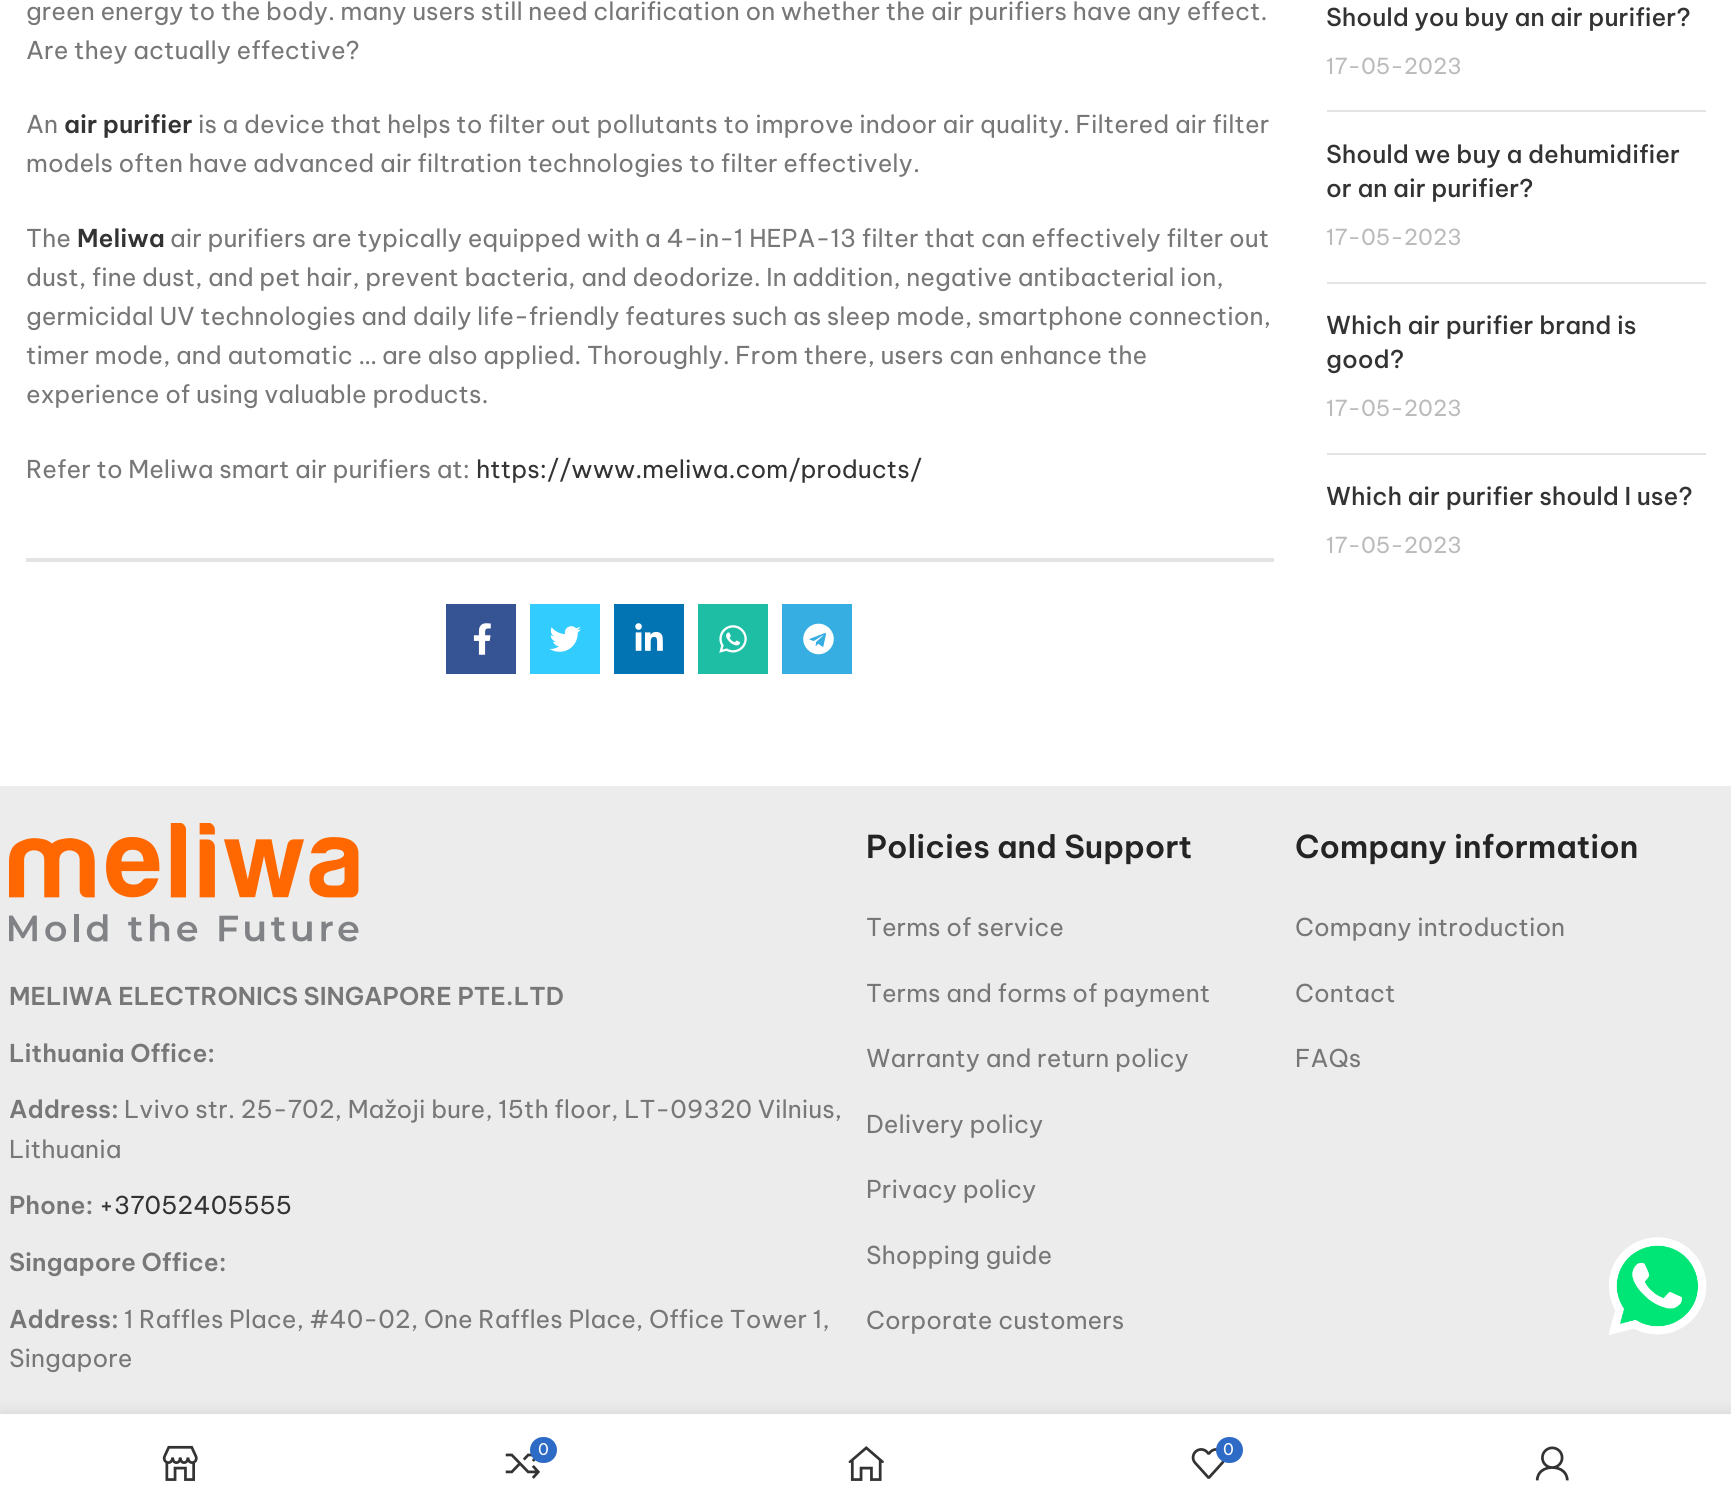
import math
import cairo



def rounded_rect(context, x, y, w, h, r):
    context.new_sub_path()
    for i, (u, v) in enumerate([(x + w - r, y + h - r), (x + r, y + h - r), (x + r, y + r), (x + w - r, y + r)]):
        context.arc(u, v, r, i * math.pi / 2, (i + 1) * math.pi / 2)
    context.close_path()


def draw_shadow(context, x, y, w, h, r, blur, alpha):
    context.push_group_with_content(cairo.Content.ALPHA)
    context.set_operator(cairo.Operator.SOURCE)
    for i in range(15, -16, -2):
        e = blur * i / 6
        if min(w, h) + 2 * e > 0:
            context.set_source_rgba(0, 0, 0, alpha * math.erfc((i - 1) / 8.5) / 2)
            rounded_rect(context, x - e, y - e, w + 2 * e, h + 2 * e, max(0, min(r + e + blur * .6, min(w, h) / 2 + e)))
            context.fill()
    context.mask(context.pop_group())


def draw_image(context, path, x, y, w, h):
    context.save()
    context.set_source_surface(cairo.ImageSurface.create_from_png(path), x, y)
    context.rectangle(x, y, w, h)
    context.fill()
    context.restore()


def draw(context):
    context.set_source_rgb(1, 1, 1)
    context.paint()
    context.set_source_rgb(228 / 255, 228 / 255, 228 / 255)
    context.rectangle(26, 558, 1248, 4)
    context.fill()
    context.set_source_rgb(54 / 255, 84 / 255, 147 / 255)
    context.rectangle(446, 604, 70, 70)
    context.fill()
    draw_image(context, "images/1.png", 473, 623, 18, 32)
    context.set_source_rgb(51 / 255, 204 / 255, 1)
    context.rectangle(530, 604, 70, 70)
    context.fill()
    draw_image(context, "images/2.png", 549, 626, 32, 26)
    context.set_source_rgb(2 / 255, 116 / 255, 179 / 255)
    context.rectangle(614, 604, 70, 70)
    context.fill()
    draw_image(context, "images/3.png", 635, 623, 28, 28)
    context.set_source_rgb(30 / 255, 190 / 255, 165 / 255)
    context.rectangle(698, 604, 70, 70)
    context.fill()
    draw_image(context, "images/4.png", 719, 625, 28, 28)
    context.set_source_rgb(55 / 255, 174 / 255, 226 / 255)
    context.rectangle(782, 604, 70, 70)
    context.fill()
    draw_image(context, "images/5.png", 803, 623, 31, 32)
    context.set_source_rgb(228 / 255, 228 / 255, 228 / 255)
    context.rectangle(1327, 110, 379, 2)
    context.fill()
    context.rectangle(1327, 282, 379, 2)
    context.fill()
    context.rectangle(1327, 453, 379, 2)
    context.fill()
    context.set_source_rgb(236 / 255, 236 / 255, 236 / 255)
    context.rectangle(0, 786, 1731, 628)
    context.fill()
    draw_image(context, "images/6.png", 9, 823, 350, 119)
    draw_image(context, "images/7.png", 1608, 1237, 99, 98)
    context.set_source_rgb(0, 0, 0)
    draw_shadow(context, 0, 1414, 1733, 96, 0, 8, 0.12)
    context.set_source_rgb(1, 1, 1)
    context.rectangle(0, 1414, 1731, 95)
    context.fill()
    draw_image(context, "images/8.png", 162, 1445, 36, 36)
    draw_image(context, "images/9.png", 505, 1453, 35, 26)
    context.set_source_rgb(46 / 255, 107 / 255, 198 / 255)
    rounded_rect(context, 530, 1437, 27, 26, 13)
    context.fill()
    draw_image(context, "images/10.png", 848, 1446, 36, 35)
    draw_image(context, "images/11.png", 1191, 1448, 34, 31)
    rounded_rect(context, 1216, 1437, 27, 26, 13)
    context.fill()
    draw_image(context, "images/12.png", 1535, 1446, 34, 35)
    context.select_font_face("Be Vietnam Pro")
    context.set_font_size(24.5)
    context.set_source_rgb(119 / 255, 119 / 255, 119 / 255)
    context.move_to(26, 20)
    context.show_text("green energy to the body. many users still need clarification on whether the air purifiers have any effect.")
    context.move_to(26, 59)
    context.show_text("Are they actually effective?")
    context.move_to(26, 133)
    context.show_text("An")
    context.select_font_face("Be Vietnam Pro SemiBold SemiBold")
    context.set_source_rgb(51 / 255, 51 / 255, 51 / 255)
    context.move_to(64, 133)
    context.show_text("air purifier")
    context.select_font_face("Be Vietnam Pro")
    context.set_source_rgb(119 / 255, 119 / 255, 119 / 255)
    context.move_to(198, 133)
    context.show_text("is a device that helps to filter out pollutants to improve indoor air quality. Filtered air filter")
    context.move_to(26, 172)
    context.show_text("models often have advanced air filtration technologies to filter effectively.")
    context.move_to(26, 247)
    context.show_text("The")
    context.select_font_face("Be Vietnam Pro SemiBold SemiBold")
    context.set_source_rgb(51 / 255, 51 / 255, 51 / 255)
    context.move_to(77, 247)
    context.show_text("Meliwa")
    context.select_font_face("Be Vietnam Pro")
    context.set_source_rgb(119 / 255, 119 / 255, 119 / 255)
    context.move_to(170, 247)
    context.show_text("air purifiers are typically equipped with a 4-in-1 HEPA-13 filter that can effectively filter out")
    context.move_to(26, 286)
    context.show_text("dust, fine dust, and pet hair, prevent bacteria, and deodorize. In addition, negative antibacterial ion,")
    context.move_to(26, 325)
    context.show_text("germicidal UV technologies and daily life-friendly features such as sleep mode, smartphone connection,")
    context.move_to(26, 364)
    context.show_text("timer mode, and automatic … are also applied. Thoroughly. From there, users can enhance the")
    context.move_to(26, 403)
    context.show_text("experience of using valuable products.")
    context.move_to(26, 478)
    context.show_text("Refer to Meliwa smart air purifiers at:")
    context.set_source_rgb(51 / 255, 51 / 255, 51 / 255)
    context.move_to(476, 478)
    context.show_text("https://www.meliwa.com/products/")
    context.select_font_face("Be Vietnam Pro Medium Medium")
    context.move_to(1326, 26)
    context.show_text("Should you buy an air purifier?")
    context.select_font_face("Be Vietnam Pro")
    context.set_font_size(22)
    context.set_source_rgb(187 / 255, 187 / 255, 187 / 255)
    context.move_to(1326, 74)
    context.show_text("17-05-2023")
    context.select_font_face("Be Vietnam Pro Medium Medium")
    context.set_font_size(24.5)
    context.set_source_rgb(51 / 255, 51 / 255, 51 / 255)
    context.move_to(1326, 163)
    context.show_text("Should we buy a dehumidifier")
    context.move_to(1326, 197)
    context.show_text("or an air purifier?")
    context.select_font_face("Be Vietnam Pro")
    context.set_font_size(22)
    context.set_source_rgb(187 / 255, 187 / 255, 187 / 255)
    context.move_to(1326, 245)
    context.show_text("17-05-2023")
    context.select_font_face("Be Vietnam Pro Medium Medium")
    context.set_font_size(24.5)
    context.set_source_rgb(51 / 255, 51 / 255, 51 / 255)
    context.move_to(1326, 334)
    context.show_text("Which air purifier brand is")
    context.move_to(1326, 368)
    context.show_text("good?")
    context.select_font_face("Be Vietnam Pro")
    context.set_font_size(22)
    context.set_source_rgb(187 / 255, 187 / 255, 187 / 255)
    context.move_to(1326, 416)
    context.show_text("17-05-2023")
    context.select_font_face("Be Vietnam Pro Medium Medium")
    context.set_font_size(24.5)
    context.set_source_rgb(51 / 255, 51 / 255, 51 / 255)
    context.move_to(1326, 505)
    context.show_text("Which air purifier should I use?")
    context.select_font_face("Be Vietnam Pro")
    context.set_font_size(22)
    context.set_source_rgb(187 / 255, 187 / 255, 187 / 255)
    context.move_to(1326, 553)
    context.show_text("17-05-2023")
    context.select_font_face("Be Vietnam Pro SemiBold SemiBold")
    context.set_font_size(31.5)
    context.set_source_rgb(36 / 255, 36 / 255, 36 / 255)
    context.move_to(866, 858)
    context.show_text("Policies and Support")
    context.select_font_face("Be Vietnam Pro")
    context.set_font_size(24.5)
    context.set_source_rgb(119 / 255, 119 / 255, 119 / 255)
    context.move_to(866, 936)
    context.show_text("Terms of service")
    context.move_to(866, 1002)
    context.show_text("Terms and forms of payment")
    context.move_to(866, 1067)
    context.show_text("Warranty and return policy")
    context.move_to(866, 1133)
    context.show_text("Delivery policy")
    context.move_to(866, 1198)
    context.show_text("Privacy policy")
    context.move_to(866, 1264)
    context.show_text("Shopping guide")
    context.move_to(866, 1329)
    context.show_text("Corporate customers")
    context.select_font_face("Be Vietnam Pro SemiBold SemiBold")
    context.set_font_size(31.5)
    context.set_source_rgb(36 / 255, 36 / 255, 36 / 255)
    context.move_to(1295, 858)
    context.show_text("Company information")
    context.select_font_face("Be Vietnam Pro")
    context.set_font_size(24.5)
    context.set_source_rgb(119 / 255, 119 / 255, 119 / 255)
    context.move_to(1295, 936)
    context.show_text("Company introduction")
    context.move_to(1295, 1002)
    context.show_text("Contact")
    context.move_to(1295, 1067)
    context.show_text("FAQs")
    context.select_font_face("Be Vietnam Pro SemiBold SemiBold")
    context.move_to(9, 1005)
    context.show_text("MELIWA ELECTRONICS SINGAPORE PTE.LTD")
    context.move_to(9, 1062)
    context.show_text("Lithuania Office:")
    context.move_to(9, 1118)
    context.show_text("Address:")
    context.select_font_face("Be Vietnam Pro")
    context.move_to(124, 1118)
    context.show_text("Lvivo str. 25-702, Mažoji bure, 15th floor, LT-09320 Vilnius,")
    context.move_to(9, 1158)
    context.show_text("Lithuania")
    context.select_font_face("Be Vietnam Pro SemiBold SemiBold")
    context.move_to(9, 1214)
    context.show_text("Phone:")
    context.select_font_face("Be Vietnam Pro")
    context.set_source_rgb(51 / 255, 51 / 255, 51 / 255)
    context.move_to(99, 1214)
    context.show_text("+37052405555")
    context.select_font_face("Be Vietnam Pro SemiBold SemiBold")
    context.set_source_rgb(119 / 255, 119 / 255, 119 / 255)
    context.move_to(9, 1271)
    context.show_text("Singapore Office:")
    context.move_to(9, 1328)
    context.show_text("Address:")
    context.select_font_face("Be Vietnam Pro")
    context.move_to(124, 1328)
    context.show_text("1 Raffles Place, #40-02, One Raffles Place, Office Tower 1,")
    context.move_to(9, 1367)
    context.show_text("Singapore")
    context.set_font_size(16)
    context.set_source_rgb(1, 1, 1)
    context.move_to(538, 1455)
    context.show_text("0")
    context.move_to(1223, 1455)
    context.show_text("0")


surface = cairo.ImageSurface(cairo.Format.RGB24, 1731, 1509)
context = cairo.Context(surface)
options = cairo.FontOptions()
options.set_hint_metrics(cairo.HintMetrics.OFF)
options.set_hint_style(cairo.HintStyle.NONE)
context.set_font_options(options)
context.set_miter_limit(4)
draw(context)
surface.write_to_png("out.png")
